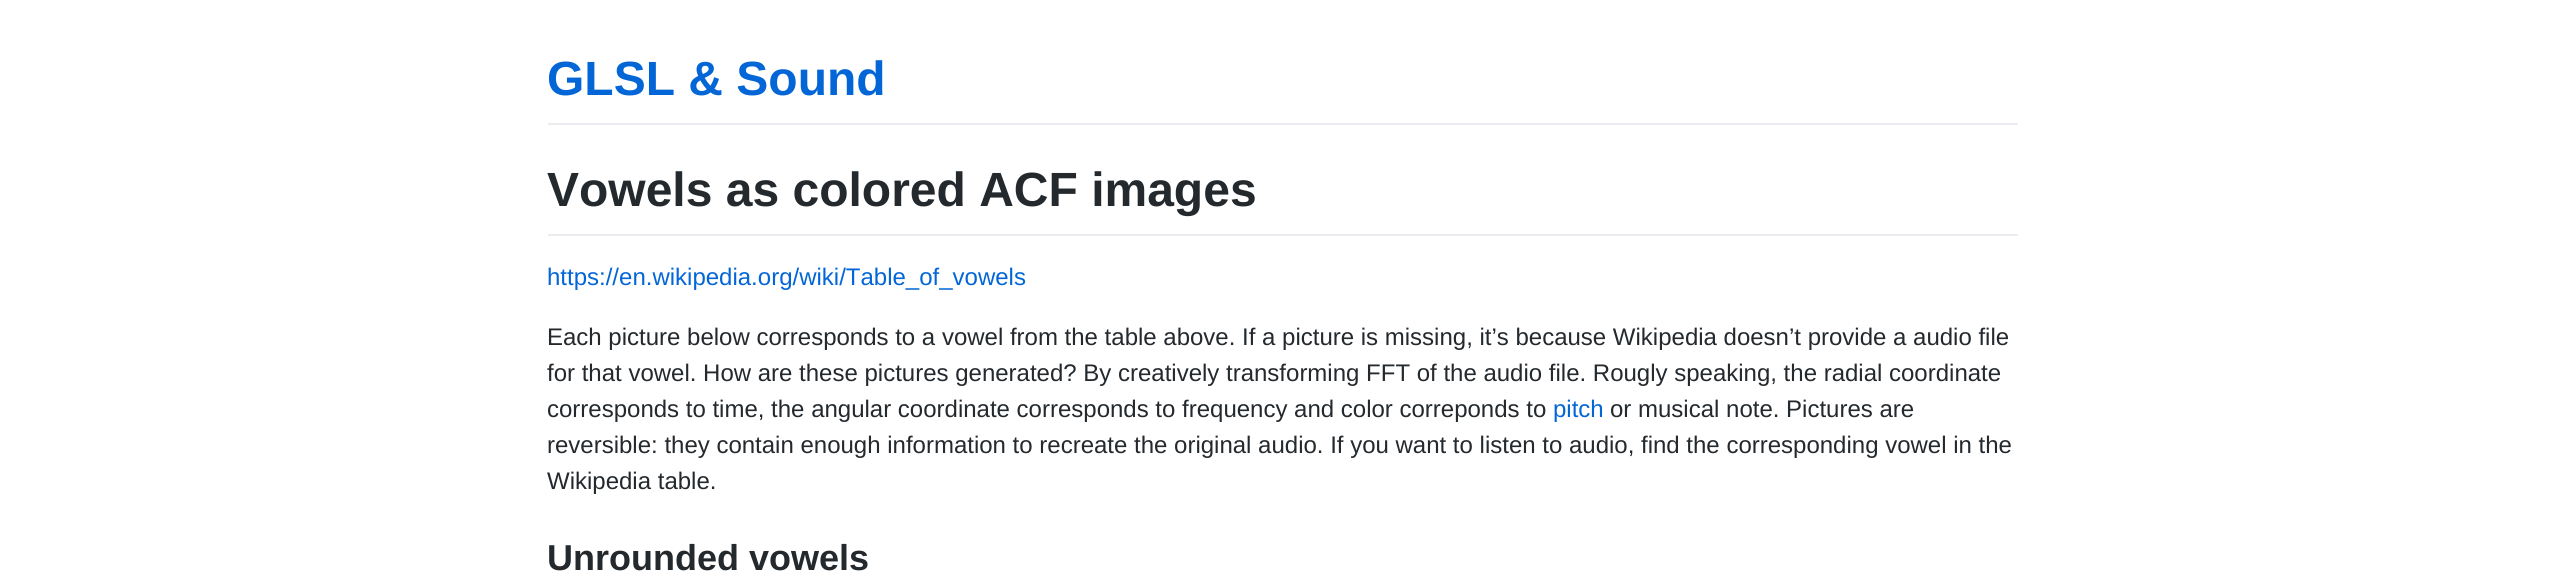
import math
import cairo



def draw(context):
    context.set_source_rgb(1, 1, 1)
    context.paint()
    context.set_source_rgb(234 / 255, 236 / 255, 239 / 255)
    context.rectangle(548, 123, 1470, 2)
    context.fill()
    context.rectangle(548, 234, 1470, 2)
    context.fill()
    context.select_font_face("Liberation Sans", cairo.FontSlant.NORMAL, cairo.FontWeight.BOLD)
    context.set_font_size(48)
    context.set_source_rgb(3 / 255, 102 / 255, 214 / 255)
    context.move_to(547, 95)
    context.show_text("GLSL & Sound")
    context.set_source_rgb(36 / 255, 41 / 255, 46 / 255)
    context.move_to(547, 206)
    context.show_text("Vowels as colored ACF images")
    context.select_font_face("Liberation Sans")
    context.set_font_size(24)
    context.set_source_rgb(3 / 255, 102 / 255, 214 / 255)
    context.move_to(547, 285)
    context.show_text("https://en.wikipedia.org/wiki/Table_of_vowels")
    context.set_source_rgb(36 / 255, 41 / 255, 46 / 255)
    context.move_to(547, 345)
    context.show_text("Each picture below corresponds to a vowel from the table above. If a picture is missing, it’s because Wikipedia doesn’t provide a audio file")
    context.move_to(547, 381)
    context.show_text("for that vowel. How are these pictures generated? By creatively transforming FFT of the audio file. Rougly speaking, the radial coordinate")
    context.move_to(547, 417)
    context.show_text("corresponds to time, the angular coordinate corresponds to frequency and color correponds to")
    context.set_source_rgb(3 / 255, 102 / 255, 214 / 255)
    context.move_to(1553, 417)
    context.show_text("pitch")
    context.set_source_rgb(36 / 255, 41 / 255, 46 / 255)
    context.move_to(1610, 417)
    context.show_text("or musical note. Pictures are")
    context.move_to(547, 453)
    context.show_text("reversible: they contain enough information to recreate the original audio. If you want to listen to audio, find the corresponding vowel in the")
    context.move_to(547, 489)
    context.show_text("Wikipedia table.")
    context.select_font_face("Liberation Sans", cairo.FontSlant.NORMAL, cairo.FontWeight.BOLD)
    context.set_font_size(36)
    context.move_to(547, 570)
    context.show_text("Unrounded vowels")


surface = cairo.ImageSurface(cairo.Format.RGB24, 2563, 584)
context = cairo.Context(surface)
options = cairo.FontOptions()
options.set_hint_metrics(cairo.HintMetrics.OFF)
options.set_hint_style(cairo.HintStyle.NONE)
context.set_font_options(options)
context.set_miter_limit(4)
draw(context)
surface.write_to_png("out.png")
